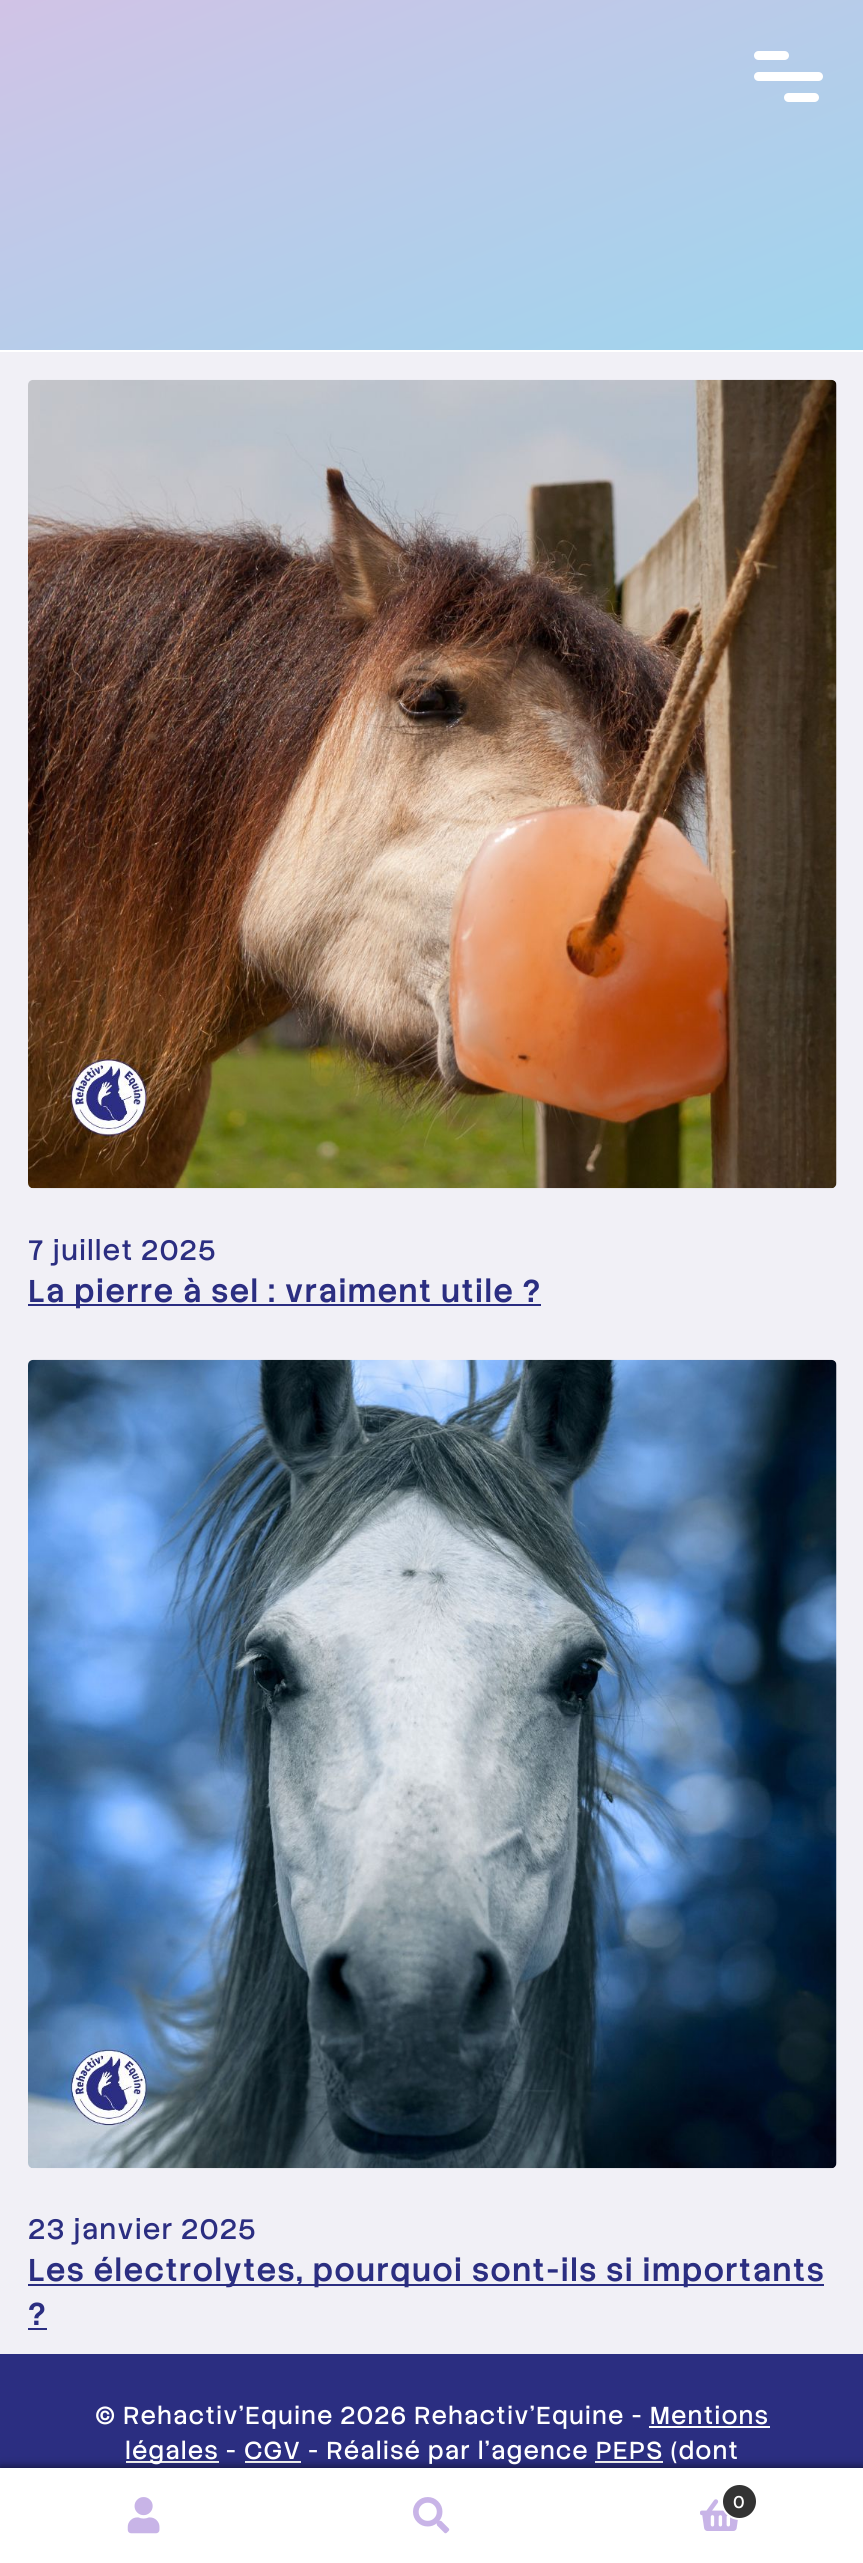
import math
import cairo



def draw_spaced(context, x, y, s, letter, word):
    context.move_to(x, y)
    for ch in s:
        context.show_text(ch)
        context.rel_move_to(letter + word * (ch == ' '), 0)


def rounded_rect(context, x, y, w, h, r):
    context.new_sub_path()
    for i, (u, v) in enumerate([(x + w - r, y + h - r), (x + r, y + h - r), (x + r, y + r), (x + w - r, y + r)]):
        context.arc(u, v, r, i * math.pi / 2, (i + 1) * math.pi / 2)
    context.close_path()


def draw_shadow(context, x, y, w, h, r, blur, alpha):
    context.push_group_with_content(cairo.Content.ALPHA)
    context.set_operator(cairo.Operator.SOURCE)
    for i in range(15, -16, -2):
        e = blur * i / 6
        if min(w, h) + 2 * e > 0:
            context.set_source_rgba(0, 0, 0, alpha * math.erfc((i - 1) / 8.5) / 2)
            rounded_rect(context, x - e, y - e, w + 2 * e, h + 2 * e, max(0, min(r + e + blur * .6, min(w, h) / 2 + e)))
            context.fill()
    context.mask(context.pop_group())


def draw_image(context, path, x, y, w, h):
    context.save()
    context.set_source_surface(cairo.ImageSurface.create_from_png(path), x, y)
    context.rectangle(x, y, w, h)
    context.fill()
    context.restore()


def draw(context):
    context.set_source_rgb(1, 1, 1)
    context.paint()
    gradient = cairo.LinearGradient(311, -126, 554, 476)
    gradient.add_color_stop_rgba(0, 209 / 255, 195 / 255, 230 / 255, 1)
    gradient.add_color_stop_rgba(1, 157 / 255, 213 / 255, 237 / 255, 1)
    context.set_source(gradient)
    context.rectangle(0, 0, 863, 350)
    context.fill()
    context.set_source_rgb(1, 1, 1)
    rounded_rect(context, 754, 51, 35, 9, 4.5)
    context.fill()
    rounded_rect(context, 754, 72, 69, 9, 4.5)
    context.fill()
    rounded_rect(context, 784, 93, 35, 9, 4.5)
    context.fill()
    context.set_source_rgb(241 / 255, 240 / 255, 246 / 255)
    context.rectangle(0, 352, 863, 2002)
    context.fill()
    draw_image(context, "images/1.png", 28, 379, 809, 810)
    context.set_source_rgb(43 / 255, 46 / 255, 129 / 255)
    context.rectangle(28, 1304, 513, 2)
    context.fill()
    draw_image(context, "images/2.png", 28, 1359, 809, 810)
    context.rectangle(28, 2284, 796, 2)
    context.fill()
    context.rectangle(28, 2328, 19, 2)
    context.fill()
    context.rectangle(0, 2354, 863, 114)
    context.fill()
    context.set_source_rgb(1, 1, 1)
    context.rectangle(649, 2426, 121, 2)
    context.fill()
    context.rectangle(126, 2461, 93, 2)
    context.fill()
    context.rectangle(245, 2461, 56, 2)
    context.fill()
    context.rectangle(595, 2461, 68, 2)
    context.fill()
    context.set_source_rgb(0, 0, 0)
    draw_shadow(context, 0, 2468, 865, 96, 0, 5, 0.7)
    context.set_source_rgb(1, 1, 1)
    context.rectangle(0, 2468, 863, 1)
    context.fill()
    context.rectangle(0, 2469, 863, 94)
    context.fill()
    draw_image(context, "images/3.png", 127, 2497, 33, 37)
    draw_image(context, "images/4.png", 413, 2497, 37, 37)
    draw_image(context, "images/5.png", 700, 2499, 38, 32)
    context.set_source_rgb(51 / 255, 51 / 255, 51 / 255)
    context.arc(739.5, 2501.5, 17.5, 0, 2 * math.pi)
    context.fill_preserve()
    context.set_source_rgb(1, 1, 1)
    context.stroke()
    context.select_font_face("Stack Sans Text")
    context.set_font_size(28)
    context.set_source_rgb(43 / 255, 46 / 255, 129 / 255)
    draw_spaced(context, 28, 1260, "7 juillet 2025", 1.05, 0)
    context.select_font_face("Stack Sans Text Medium")
    context.set_font_size(31.5)
    draw_spaced(context, 28, 1302, "La pierre à sel : vraiment utile ?", 1.05, 0)
    context.select_font_face("Stack Sans Text")
    context.set_font_size(28)
    draw_spaced(context, 28, 2239, "23 janvier 2025", 1.05, 0)
    context.select_font_face("Stack Sans Text Medium")
    context.set_font_size(31.5)
    draw_spaced(context, 28, 2281, "Les électrolytes, pourquoi sont-ils si importants", 1.05, 0)
    draw_spaced(context, 28, 2325, "?", 1.05, 0)
    context.select_font_face("Stack Sans Text")
    context.set_font_size(24.5)
    context.set_source_rgb(1, 1, 1)
    draw_spaced(context, 95, 2424, "© Rehactiv'Equine 2026 Rehactiv'Equine - Mentions", 1.05, 0)
    draw_spaced(context, 125, 2459, "légales - CGV - Réalisé par l'agence PEPS (dont", 1.05, 0)
    context.set_font_size(17)
    draw_spaced(context, 733, 2508, "0", 1.05, 0)


surface = cairo.ImageSurface(cairo.Format.RGB24, 863, 2563)
context = cairo.Context(surface)
options = cairo.FontOptions()
options.set_hint_metrics(cairo.HintMetrics.OFF)
options.set_hint_style(cairo.HintStyle.NONE)
context.set_font_options(options)
context.set_miter_limit(4)
draw(context)
surface.write_to_png("out.png")
